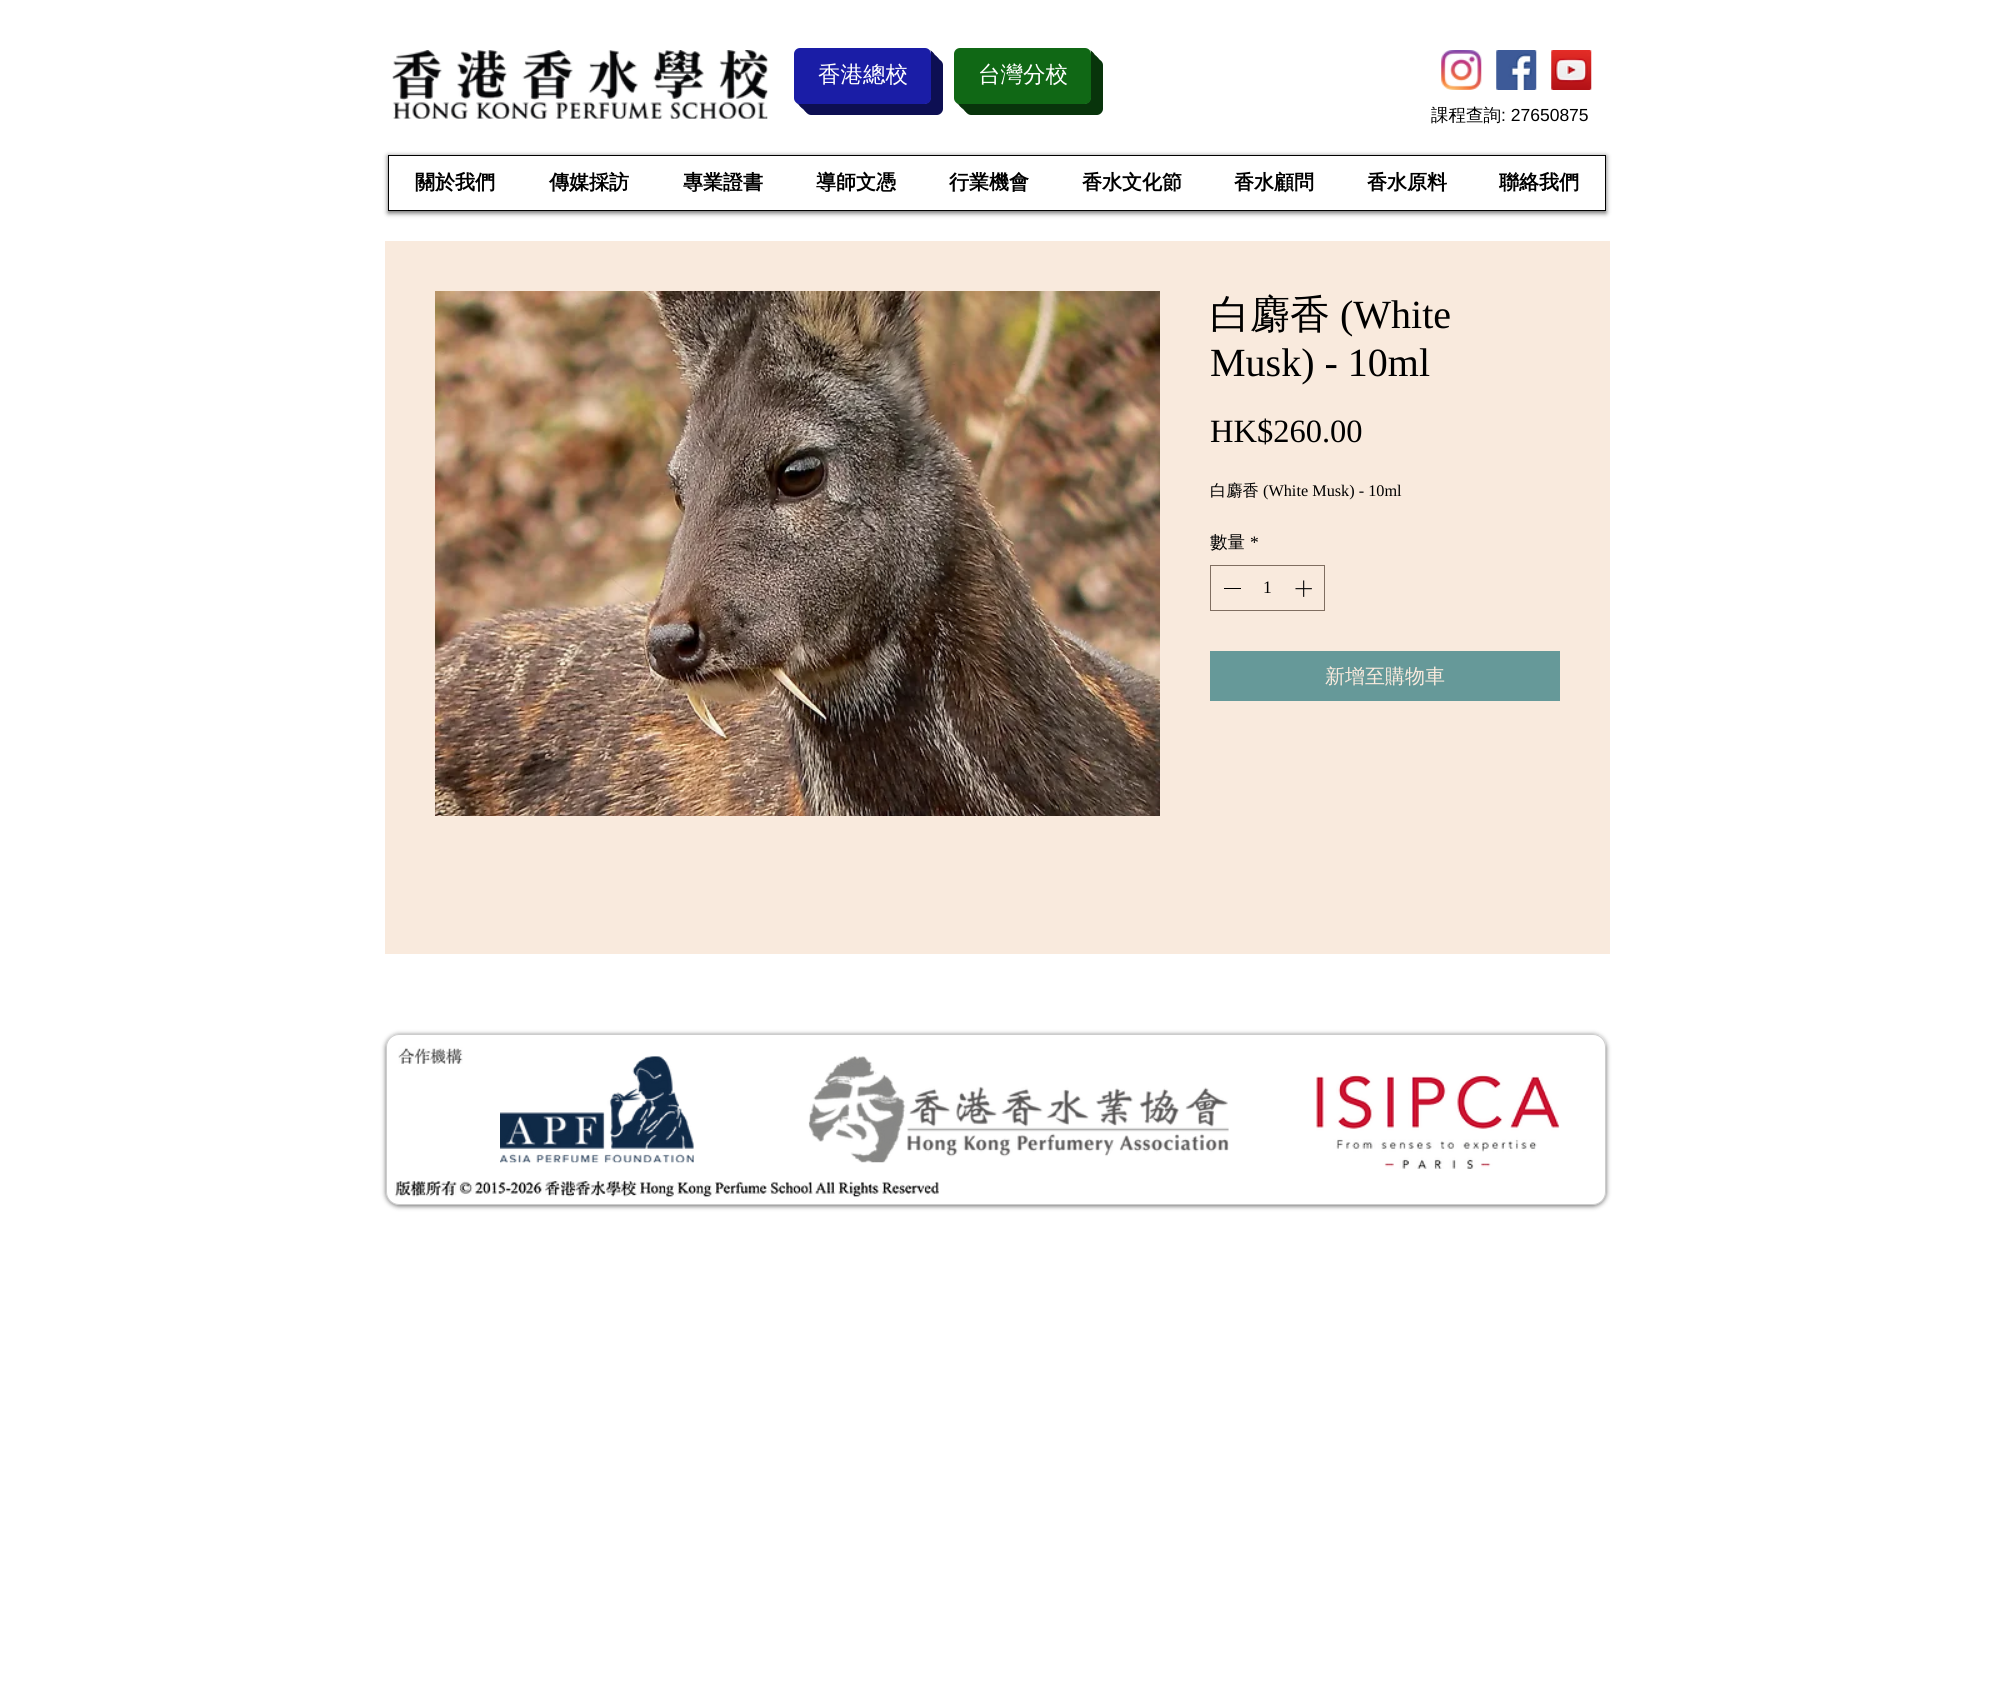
import math
import cairo



def rounded_rect(context, x, y, w, h, r):
    context.new_sub_path()
    for i, (u, v) in enumerate([(x + w - r, y + h - r), (x + r, y + h - r), (x + r, y + r), (x + w - r, y + r)]):
        context.arc(u, v, r, i * math.pi / 2, (i + 1) * math.pi / 2)
    context.close_path()


def draw_shadow(context, x, y, w, h, r, blur, alpha):
    context.push_group_with_content(cairo.Content.ALPHA)
    context.set_operator(cairo.Operator.SOURCE)
    for i in range(15, -16, -2):
        e = blur * i / 6
        if min(w, h) + 2 * e > 0:
            context.set_source_rgba(0, 0, 0, alpha * math.erfc((i - 1) / 8.5) / 2)
            rounded_rect(context, x - e, y - e, w + 2 * e, h + 2 * e, max(0, min(r + e + blur * .6, min(w, h) / 2 + e)))
            context.fill()
    context.mask(context.pop_group())


def draw_image(context, path, x, y, w, h):
    context.save()
    context.set_source_surface(cairo.ImageSurface.create_from_png(path), x, y)
    context.rectangle(x, y, w, h)
    context.fill()
    context.restore()


def draw(context):
    context.set_source_rgb(1, 1, 1)
    context.paint()
    draw_image(context, "images/1.png", 392, 50, 376, 69)
    context.set_source_rgb(13 / 255, 15 / 255, 83 / 255)
    context.new_path()
    context.move_to(805, 104)
    context.line_to(805, 109)
    context.curve_to(805, 112, 808, 115, 811, 115)
    context.line_to(937, 115)
    context.curve_to(940, 115, 943, 112, 943, 109)
    context.line_to(943, 65)
    context.curve_to(943, 62, 940, 59, 937, 59)
    context.line_to(931, 59)
    context.line_to(931, 98)
    context.curve_to(931, 101, 928, 104, 925, 104)
    context.close_path()
    context.fill()
    context.new_path()
    context.move_to(803, 104)
    context.line_to(803, 107)
    context.curve_to(803, 110, 806, 113, 809, 113)
    context.line_to(934, 113)
    context.curve_to(937, 113, 940, 110, 940, 107)
    context.line_to(940, 62)
    context.curve_to(940, 59, 937, 56, 934, 56)
    context.line_to(931, 56)
    context.line_to(931, 98)
    context.curve_to(931, 101, 928, 104, 925, 104)
    context.close_path()
    context.fill()
    context.new_path()
    context.move_to(800, 104)
    context.curve_to(800, 107, 803, 110, 806, 110)
    context.line_to(932, 110)
    context.curve_to(935, 110, 938, 107, 938, 104)
    context.line_to(938, 60)
    context.curve_to(938, 57, 935, 54, 932, 54)
    context.line_to(931, 54)
    context.line_to(931, 98)
    context.curve_to(931, 101, 928, 104, 925, 104)
    context.close_path()
    context.fill()
    context.new_path()
    context.move_to(798, 103)
    context.curve_to(799, 106, 801, 108, 804, 108)
    context.line_to(929, 108)
    context.curve_to(932, 108, 935, 105, 935, 102)
    context.line_to(935, 57)
    context.curve_to(935, 54, 933, 52, 931, 51)
    context.curve_to(932, 54, 931, 59, 931, 61)
    context.line_to(931, 83)
    context.curve_to(931, 108, 933, 104, 904, 104)
    context.close_path()
    context.fill()
    context.new_path()
    context.move_to(796, 102)
    context.curve_to(797, 104, 799, 105, 801, 105)
    context.line_to(927, 105)
    context.curve_to(930, 105, 933, 102, 933, 99)
    context.line_to(933, 55)
    context.curve_to(933, 53, 932, 51, 930, 50)
    context.curve_to(931, 51, 931, 52, 931, 54)
    context.line_to(931, 98)
    context.curve_to(931, 101, 928, 104, 925, 104)
    context.line_to(800, 104)
    context.curve_to(798, 104, 797, 103, 796, 102)
    context.close_path()
    context.fill()
    context.set_source_rgb(26 / 255, 29 / 255, 166 / 255)
    rounded_rect(context, 794, 48, 137, 56, 6)
    context.fill()
    context.set_source_rgb(8 / 255, 52 / 255, 11 / 255)
    context.new_path()
    context.move_to(965, 104)
    context.line_to(965, 109)
    context.curve_to(965, 112, 968, 115, 971, 115)
    context.line_to(1097, 115)
    context.curve_to(1100, 115, 1103, 112, 1103, 109)
    context.line_to(1103, 65)
    context.curve_to(1103, 62, 1100, 59, 1097, 59)
    context.line_to(1091, 59)
    context.line_to(1091, 98)
    context.curve_to(1091, 101, 1088, 104, 1085, 104)
    context.close_path()
    context.fill()
    context.new_path()
    context.move_to(963, 104)
    context.line_to(963, 107)
    context.curve_to(963, 110, 966, 113, 969, 113)
    context.line_to(1094, 113)
    context.curve_to(1097, 113, 1100, 110, 1100, 107)
    context.line_to(1100, 62)
    context.curve_to(1100, 59, 1097, 56, 1094, 56)
    context.line_to(1091, 56)
    context.line_to(1091, 98)
    context.curve_to(1091, 101, 1088, 104, 1085, 104)
    context.close_path()
    context.fill()
    context.new_path()
    context.move_to(960, 104)
    context.curve_to(960, 107, 963, 110, 966, 110)
    context.line_to(1092, 110)
    context.curve_to(1095, 110, 1098, 107, 1098, 104)
    context.line_to(1098, 60)
    context.curve_to(1098, 57, 1095, 54, 1092, 54)
    context.line_to(1091, 54)
    context.line_to(1091, 98)
    context.curve_to(1091, 101, 1088, 104, 1085, 104)
    context.close_path()
    context.fill()
    context.new_path()
    context.move_to(958, 103)
    context.curve_to(959, 106, 961, 108, 964, 108)
    context.line_to(1089, 108)
    context.curve_to(1092, 108, 1095, 105, 1095, 102)
    context.line_to(1095, 57)
    context.curve_to(1095, 54, 1093, 52, 1091, 51)
    context.curve_to(1092, 54, 1091, 59, 1091, 61)
    context.line_to(1091, 83)
    context.curve_to(1091, 108, 1093, 104, 1064, 104)
    context.close_path()
    context.fill()
    context.new_path()
    context.move_to(956, 102)
    context.curve_to(957, 104, 959, 105, 961, 105)
    context.line_to(1087, 105)
    context.curve_to(1090, 105, 1093, 102, 1093, 99)
    context.line_to(1093, 55)
    context.curve_to(1093, 53, 1092, 51, 1090, 50)
    context.curve_to(1091, 51, 1091, 52, 1091, 54)
    context.line_to(1091, 98)
    context.curve_to(1091, 101, 1088, 104, 1085, 104)
    context.line_to(960, 104)
    context.curve_to(958, 104, 957, 103, 956, 102)
    context.close_path()
    context.fill()
    context.set_source_rgb(16 / 255, 104 / 255, 21 / 255)
    rounded_rect(context, 954, 48, 137, 56, 6)
    context.fill()
    draw_image(context, "images/2.png", 1441, 50, 41, 40)
    draw_image(context, "images/3.png", 1496, 50, 41, 40)
    draw_image(context, "images/4.png", 1551, 50, 41, 40)
    context.save()
    context.set_fill_rule(cairo.FillRule.EVEN_ODD)
    context.new_path()
    context.move_to(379, 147)
    context.line_to(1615, 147)
    context.line_to(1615, 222)
    context.line_to(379, 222)
    context.close_path()
    context.move_to(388, 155)
    context.line_to(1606, 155)
    context.line_to(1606, 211)
    context.line_to(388, 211)
    context.close_path()
    context.clip()
    context.set_source_rgb(0, 0, 0)
    draw_shadow(context, 388, 156, 1218, 57, 0, 2.5, 0.6)
    context.restore()
    context.rectangle(388.5, 155.5, 1217, 55)
    context.set_source_rgb(0, 0, 0)
    context.set_line_width(1)
    context.stroke()
    context.set_source_rgb(249 / 255, 234 / 255, 221 / 255)
    context.rectangle(385, 241, 1225, 713)
    context.fill()
    draw_image(context, "images/5.png", 435, 291, 725, 525)
    context.rectangle(1210.5, 565.5, 114, 45)
    context.set_source_rgb(128 / 255, 110 / 255, 96 / 255)
    context.stroke()
    context.set_source_rgb(0, 0, 0)
    context.rectangle(1224, 588, 17, 1)
    context.fill()
    draw_image(context, "images/6.png", 1295, 580, 17, 17)
    context.set_source_rgb(102 / 255, 153 / 255, 153 / 255)
    context.rectangle(1210, 651, 350, 50)
    context.fill()
    draw_image(context, "images/8.png", 398, 1047, 65, 17)
    context.save()
    context.set_fill_rule(cairo.FillRule.EVEN_ODD)
    context.new_path()
    context.move_to(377, 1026)
    context.line_to(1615, 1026)
    context.line_to(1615, 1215)
    context.line_to(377, 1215)
    context.close_path()
    context.move_to(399, 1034)
    context.line_to(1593, 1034)
    context.curve_to(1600, 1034, 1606, 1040, 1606, 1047)
    context.line_to(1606, 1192)
    context.curve_to(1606, 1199, 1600, 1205, 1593, 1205)
    context.line_to(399, 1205)
    context.curve_to(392, 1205, 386, 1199, 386, 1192)
    context.line_to(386, 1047)
    context.curve_to(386, 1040, 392, 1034, 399, 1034)
    context.close_path()
    context.clip()
    context.set_source_rgb(0, 0, 0)
    draw_shadow(context, 386, 1035, 1220, 171, 13, 2.5, 0.6)
    context.restore()
    draw_image(context, "images/7.png", 386, 1035, 1220, 29)
    rounded_rect(context, 386.5, 1034.5, 1219, 170, 12.5)
    context.set_source_rgba(0, 0, 0, 0.2)
    context.stroke()
    draw_image(context, "images/9.png", 500, 1056, 194, 107)
    draw_image(context, "images/10.png", 808, 1056, 421, 107)
    draw_image(context, "images/11.png", 1316, 1075, 244, 94)
    draw_image(context, "images/12.png", 394, 1180, 545, 17)
    context.select_font_face("WenQuanYi Zen Hei Medium")
    context.set_font_size(22.5)
    context.set_source_rgb(1, 1, 1)
    context.move_to(818, 82)
    context.show_text("香港總校")
    context.move_to(978, 82)
    context.show_text("台灣分校")
    context.set_font_size(17.5)
    context.set_source_rgb(0, 0, 0)
    context.move_to(1431, 121)
    context.show_text("課程查詢")
    context.select_font_face("Liberation Sans")
    context.move_to(1501, 121)
    context.show_text(": 27650875")
    context.select_font_face("WenQuanYi Zen Hei", cairo.FontSlant.NORMAL, cairo.FontWeight.BOLD)
    context.set_font_size(20)
    context.move_to(415, 189)
    context.show_text("關於我們")
    context.move_to(549, 189)
    context.show_text("傳媒採訪")
    context.move_to(683, 189)
    context.show_text("專業證書")
    context.move_to(816, 189)
    context.show_text("導師文憑")
    context.move_to(949, 189)
    context.show_text("行業機會")
    context.move_to(1082, 189)
    context.show_text("香水文化節")
    context.move_to(1234, 189)
    context.show_text("香水顧問")
    context.move_to(1367, 189)
    context.show_text("香水原料")
    context.move_to(1499, 189)
    context.show_text("聯絡我們")
    context.select_font_face("WenQuanYi Zen Hei Medium")
    context.set_font_size(40)
    context.move_to(1210, 328)
    context.show_text("白麝香")
    context.select_font_face("Liberation Serif")
    context.move_to(1340, 328)
    context.show_text("(White")
    context.move_to(1210, 376)
    context.show_text("Musk) - 10ml")
    context.set_font_size(32.5)
    context.move_to(1210, 442)
    context.show_text("HK$260.00")
    context.select_font_face("WenQuanYi Zen Hei Medium")
    context.set_font_size(16.25)
    context.move_to(1210, 496)
    context.show_text("白麝香")
    context.select_font_face("Liberation Serif")
    context.move_to(1263, 496)
    context.show_text("(White Musk) - 10ml")
    context.select_font_face("WenQuanYi Zen Hei Medium")
    context.set_font_size(17.5)
    context.move_to(1210, 548)
    context.show_text("數量")
    context.select_font_face("Liberation Serif")
    context.move_to(1250, 548)
    context.show_text("*")
    context.move_to(1263, 593)
    context.show_text("1")
    context.select_font_face("WenQuanYi Zen Hei Medium")
    context.set_font_size(20)
    context.set_source_rgb(249 / 255, 234 / 255, 221 / 255)
    context.move_to(1325, 683)
    context.show_text("新增至購物車")


surface = cairo.ImageSurface(cairo.Format.RGB24, 1995, 1707)
context = cairo.Context(surface)
options = cairo.FontOptions()
options.set_hint_metrics(cairo.HintMetrics.OFF)
options.set_hint_style(cairo.HintStyle.NONE)
context.set_font_options(options)
context.set_miter_limit(4)
draw(context)
surface.write_to_png("out.png")
